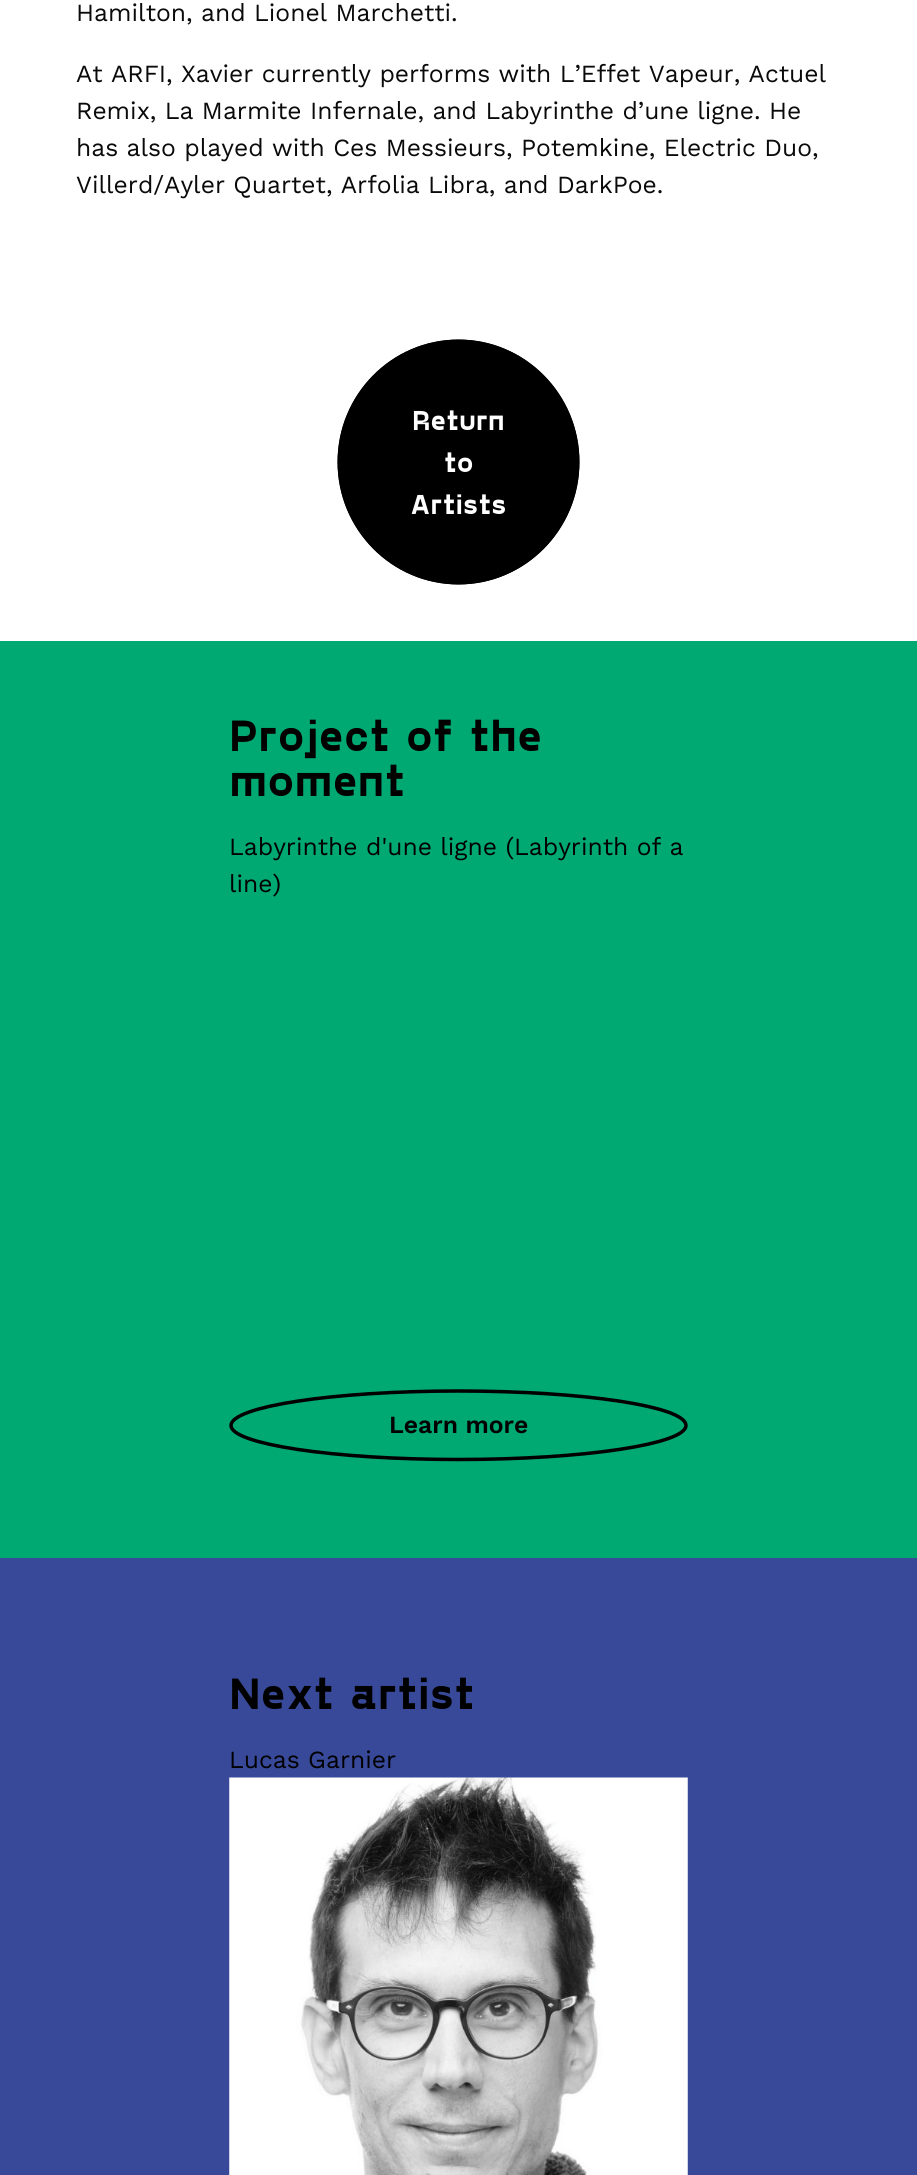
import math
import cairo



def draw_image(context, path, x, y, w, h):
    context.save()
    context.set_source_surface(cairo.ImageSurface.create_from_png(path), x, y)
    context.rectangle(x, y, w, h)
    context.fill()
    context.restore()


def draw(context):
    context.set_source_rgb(1, 1, 1)
    context.paint()
    context.set_source_rgb(0, 0, 0)
    context.new_path()
    context.move_to(458.5, 339.5)
    context.curve_to(525.5, 339.5, 579.5, 394.5, 579.5, 462)
    context.curve_to(579.5, 529.5, 525.5, 584.5, 458.5, 584.5)
    context.curve_to(391.5, 584.5, 337.5, 529.5, 337.5, 462)
    context.curve_to(337.5, 394.5, 391.5, 339.5, 458.5, 339.5)
    context.close_path()
    context.fill()
    context.new_path()
    context.move_to(458.5, 340.5)
    context.curve_to(524.5, 340.5, 578.5, 395, 578.5, 462)
    context.curve_to(578.5, 529, 524.5, 583.5, 458.5, 583.5)
    context.curve_to(392.5, 583.5, 338.5, 529, 338.5, 462)
    context.curve_to(338.5, 395, 392.5, 340.5, 458.5, 340.5)
    context.close_path()
    context.set_line_width(1.8)
    context.stroke()
    context.set_source_rgb(0, 168 / 255, 114 / 255)
    context.rectangle(0, 641, 917, 917)
    context.fill()
    context.new_path()
    context.move_to(458.5, 1391)
    context.curve_to(584, 1391, 686, 1406.5, 686, 1425.5)
    context.curve_to(686, 1444, 584, 1459.5, 458.5, 1459.5)
    context.curve_to(333, 1459.5, 231, 1444, 231, 1425.5)
    context.curve_to(231, 1406.5, 333, 1391, 458.5, 1391)
    context.close_path()
    context.set_source_rgb(0, 0, 0)
    context.set_line_width(3.5)
    context.stroke()
    context.set_source_rgb(55 / 255, 73 / 255, 152 / 255)
    context.rectangle(0, 1558, 917, 617)
    context.fill()
    draw_image(context, "images/1.png", 229, 1777, 459, 398)
    context.select_font_face("Work Sans")
    context.set_font_size(24.65)
    context.set_source_rgb(10 / 255, 10 / 255, 10 / 255)
    context.move_to(76, 21)
    context.show_text("Hamilton, and Lionel Marchetti.")
    context.move_to(76, 82)
    context.show_text("At ARFI, Xavier currently performs with L’Effet Vapeur, Actuel")
    context.move_to(76, 119)
    context.show_text("Remix, La Marmite Infernale, and Labyrinthe d’une ligne. He")
    context.move_to(76, 156)
    context.show_text("has also played with Ces Messieurs, Potemkine, Electric Duo,")
    context.move_to(76, 193)
    context.show_text("Villerd/Ayler Quartet, Arfolia Libra, and DarkPoe.")
    context.select_font_face("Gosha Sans", cairo.FontSlant.NORMAL, cairo.FontWeight.BOLD)
    context.set_font_size(28)
    context.set_source_rgb(1, 1, 1)
    context.move_to(412, 430)
    context.show_text("Return")
    context.move_to(444, 472)
    context.show_text("to")
    context.move_to(410, 514)
    context.show_text("Artists")
    context.set_font_size(44.75)
    context.set_source_rgb(0, 0, 0)
    context.move_to(229, 751)
    context.show_text("Project of the")
    context.move_to(229, 796)
    context.show_text("moment")
    context.select_font_face("Work Sans")
    context.set_font_size(24.65)
    context.move_to(229, 855)
    context.show_text("Labyrinthe d'une ligne (Labyrinth of a")
    context.move_to(229, 892)
    context.show_text("line)")
    context.select_font_face("Work Sans SemiBold")
    context.move_to(389, 1433)
    context.show_text("Learn more")
    context.select_font_face("Gosha Sans", cairo.FontSlant.NORMAL, cairo.FontWeight.BOLD)
    context.set_font_size(44.75)
    context.move_to(229, 1709)
    context.show_text("Next artist")
    context.select_font_face("Work Sans")
    context.set_font_size(24.65)
    context.move_to(229, 1768)
    context.show_text("Lucas Garnier")


surface = cairo.ImageSurface(cairo.Format.RGB24, 917, 2175)
context = cairo.Context(surface)
options = cairo.FontOptions()
options.set_hint_metrics(cairo.HintMetrics.OFF)
options.set_hint_style(cairo.HintStyle.NONE)
context.set_font_options(options)
context.set_miter_limit(4)
draw(context)
surface.write_to_png("out.png")
